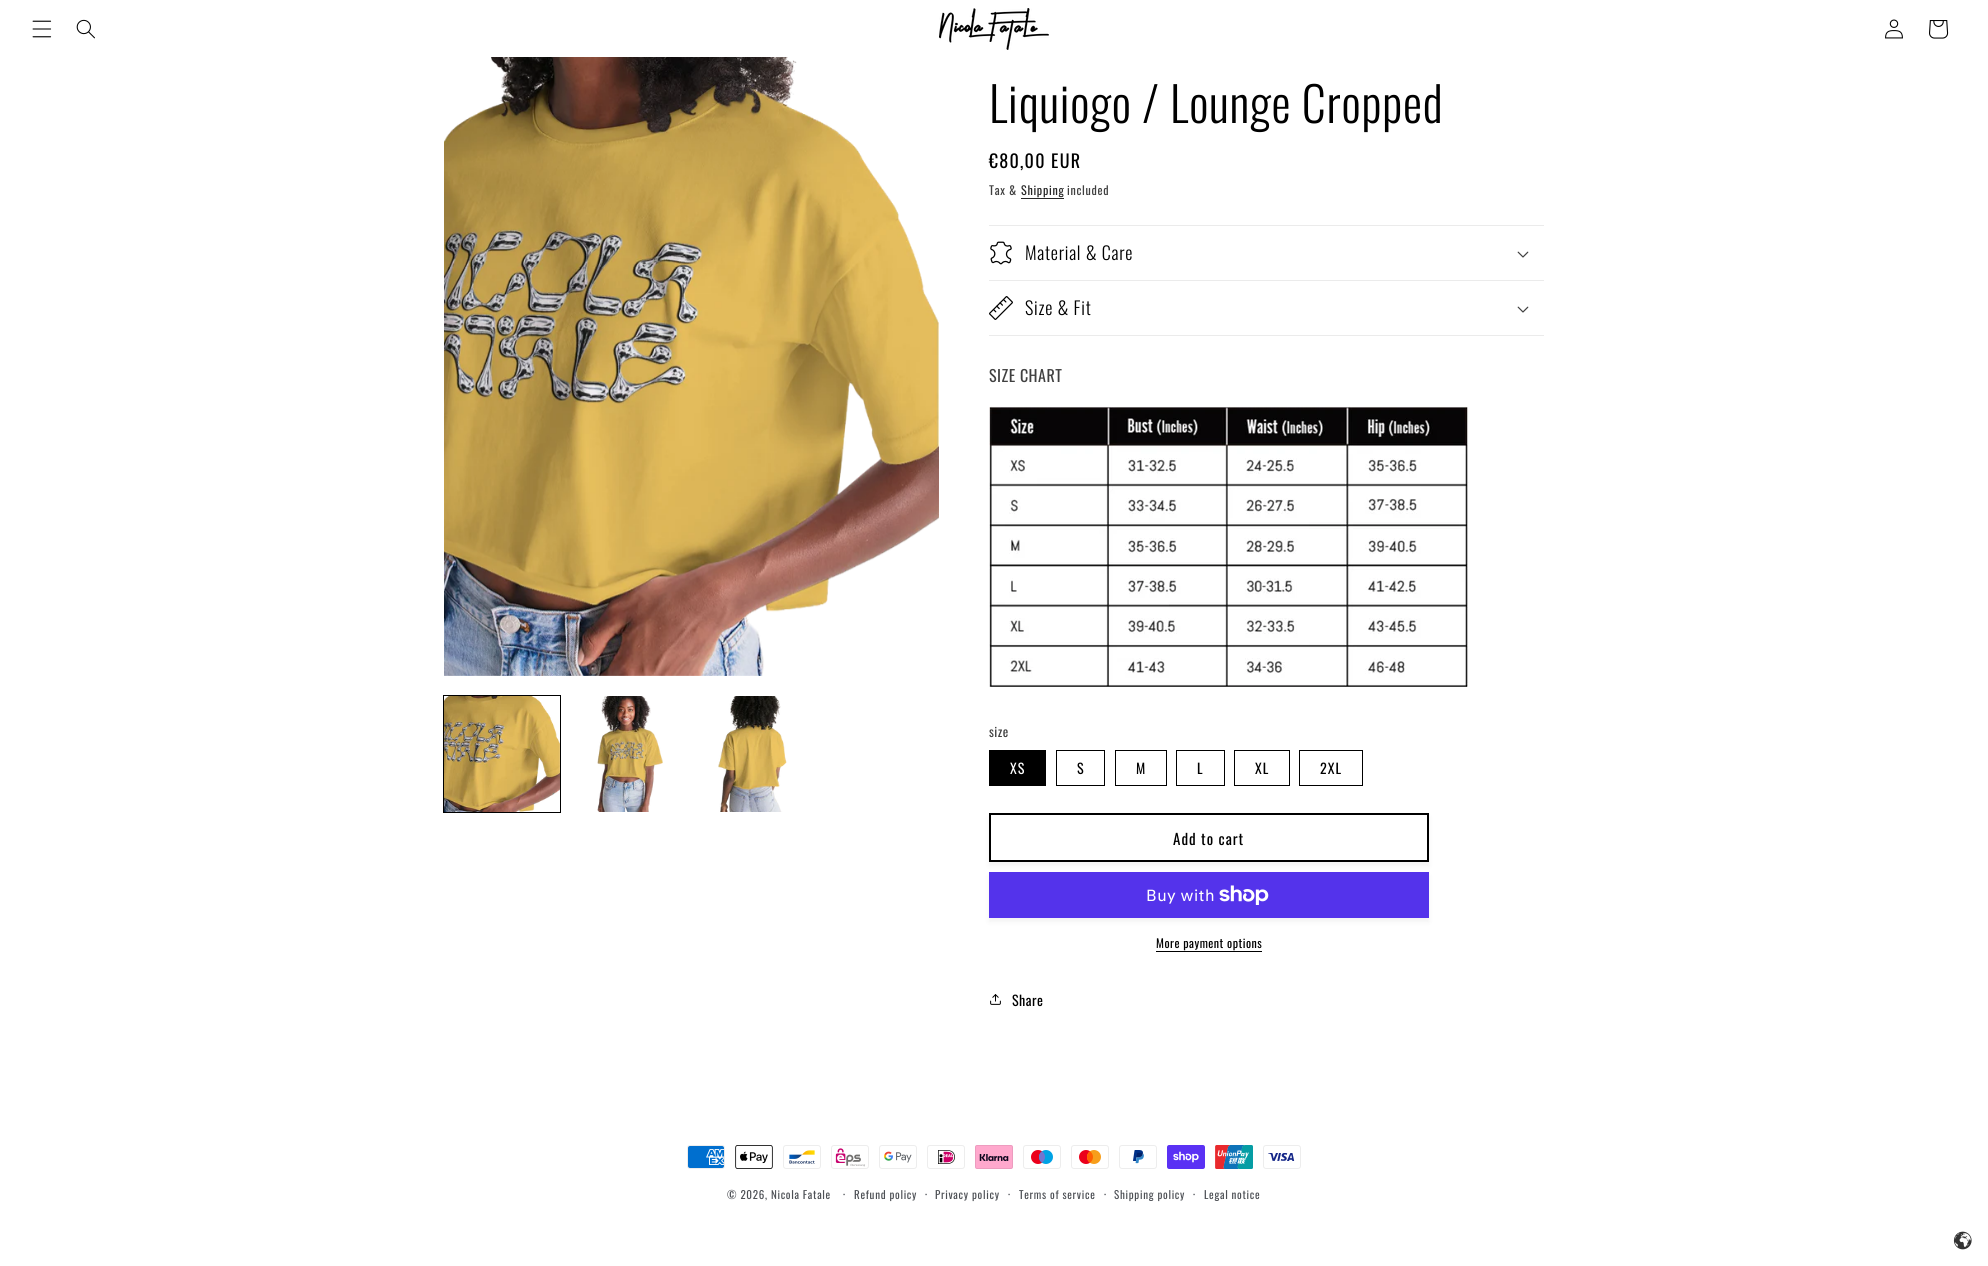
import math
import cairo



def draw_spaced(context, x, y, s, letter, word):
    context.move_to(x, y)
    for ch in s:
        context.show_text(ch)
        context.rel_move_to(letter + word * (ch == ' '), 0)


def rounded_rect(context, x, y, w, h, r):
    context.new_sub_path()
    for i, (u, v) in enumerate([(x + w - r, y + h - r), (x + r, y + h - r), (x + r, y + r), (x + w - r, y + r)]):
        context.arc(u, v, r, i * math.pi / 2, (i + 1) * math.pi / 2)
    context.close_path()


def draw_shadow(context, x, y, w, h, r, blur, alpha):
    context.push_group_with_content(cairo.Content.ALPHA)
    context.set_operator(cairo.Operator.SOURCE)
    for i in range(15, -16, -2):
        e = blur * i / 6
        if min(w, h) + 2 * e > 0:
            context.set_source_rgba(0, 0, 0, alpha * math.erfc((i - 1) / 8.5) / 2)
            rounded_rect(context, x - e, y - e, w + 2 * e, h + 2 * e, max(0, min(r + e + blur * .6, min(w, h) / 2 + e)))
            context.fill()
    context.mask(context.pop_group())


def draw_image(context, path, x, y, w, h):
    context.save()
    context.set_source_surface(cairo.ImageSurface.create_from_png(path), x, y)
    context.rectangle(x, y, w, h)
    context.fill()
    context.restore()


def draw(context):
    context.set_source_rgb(1, 1, 1)
    context.paint()
    draw_image(context, "images/1.png", 32, 20, 20, 18)
    draw_image(context, "images/2.png", 76, 19, 19, 20)
    draw_image(context, "images/3.png", 939, 8, 110, 42)
    draw_image(context, "images/4.png", 1885, 19, 18, 20)
    draw_image(context, "images/5.png", 1929, 20, 20, 19)
    draw_image(context, "images/6.png", 444, 57, 495, 619)
    context.rectangle(443.5, 695.5, 117, 117)
    context.set_source_rgb(0, 0, 0)
    context.set_line_width(1)
    context.stroke()
    draw_image(context, "images/7.png", 444, 696, 116, 116)
    draw_image(context, "images/8.png", 597, 696, 66, 116)
    draw_image(context, "images/9.png", 718, 696, 69, 116)
    context.set_source_rgb(38 / 255, 38 / 255, 38 / 255)
    context.rectangle(1021, 198, 43, 1)
    context.fill()
    context.set_source_rgb(235 / 255, 235 / 255, 235 / 255)
    context.rectangle(989, 225, 555, 1)
    context.fill()
    context.rectangle(989, 280, 555, 1)
    context.fill()
    draw_image(context, "images/10.png", 990, 241, 22, 24)
    draw_image(context, "images/11.png", 1517, 251, 12, 7)
    context.rectangle(989, 335, 555, 1)
    context.fill()
    draw_image(context, "images/12.png", 989, 296, 24, 24)
    draw_image(context, "images/11.png", 1517, 306, 12, 7)
    draw_image(context, "images/13.png", 989, 406, 480, 281)
    context.set_source_rgb(0, 0, 0)
    context.rectangle(989, 750, 57, 36)
    context.fill()
    context.rectangle(1056.5, 750.5, 48, 35)
    context.stroke()
    context.rectangle(1115.5, 750.5, 51, 35)
    context.stroke()
    context.rectangle(1176.5, 750.5, 48, 35)
    context.stroke()
    context.rectangle(1234.5, 750.5, 55, 35)
    context.stroke()
    context.rectangle(1299.5, 750.5, 63, 35)
    context.stroke()
    context.save()
    context.set_fill_rule(cairo.FillRule.EVEN_ODD)
    context.new_path()
    context.move_to(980, 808)
    context.line_to(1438, 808)
    context.line_to(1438, 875)
    context.line_to(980, 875)
    context.close_path()
    context.move_to(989, 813)
    context.line_to(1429, 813)
    context.line_to(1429, 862)
    context.line_to(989, 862)
    context.close_path()
    context.clip()
    context.set_source_rgb(0, 0, 0)
    draw_shadow(context, 989, 817, 440, 49, 0, 2.5, 0.05)
    context.restore()
    context.rectangle(990, 814, 438, 47)
    context.set_line_width(2)
    context.stroke()
    context.set_source_rgb(0, 0, 0)
    draw_shadow(context, 989, 876, 440, 46, 0, 2.5, 0.05)
    context.set_source_rgb(84 / 255, 51 / 255, 235 / 255)
    context.rectangle(989, 872, 440, 46)
    context.fill()
    draw_image(context, "images/14.png", 1219, 885, 50, 20)
    context.set_source_rgb(0, 0, 0)
    context.rectangle(1156, 951, 106, 1)
    context.fill()
    draw_image(context, "images/15.png", 990, 994, 11, 11)
    draw_image(context, "images/16.png", 687, 1145, 38, 24)
    draw_image(context, "images/17.png", 735, 1145, 38, 24)
    draw_image(context, "images/18.png", 783, 1145, 38, 24)
    draw_image(context, "images/19.png", 831, 1145, 38, 24)
    draw_image(context, "images/20.png", 879, 1145, 38, 24)
    draw_image(context, "images/21.png", 927, 1145, 38, 24)
    draw_image(context, "images/22.png", 975, 1145, 38, 24)
    draw_image(context, "images/23.png", 1023, 1145, 38, 24)
    draw_image(context, "images/24.png", 1071, 1145, 38, 24)
    draw_image(context, "images/25.png", 1119, 1145, 38, 24)
    draw_image(context, "images/26.png", 1167, 1145, 38, 24)
    draw_image(context, "images/27.png", 1215, 1145, 38, 24)
    draw_image(context, "images/28.png", 1263, 1145, 38, 24)
    draw_image(context, "images/29.png", 1953, 1231, 19, 19)
    context.select_font_face("Oswald Light")
    context.set_font_size(48)
    draw_spaced(context, 989, 123, "Liquiogo / Lounge Cropped", 0.75, 0)
    context.select_font_face("Oswald")
    context.set_font_size(18)
    draw_spaced(context, 989, 168, "€80,00 EUR", 1.25, 0)
    context.set_font_size(12)
    context.set_source_rgb(64 / 255, 64 / 255, 64 / 255)
    draw_spaced(context, 989, 195, "Tax &", 0.7, 0)
    context.set_source_rgb(38 / 255, 38 / 255, 38 / 255)
    draw_spaced(context, 1021, 195, "Shipping", 0.7, 0)
    context.set_source_rgb(64 / 255, 64 / 255, 64 / 255)
    draw_spaced(context, 1067, 195, "included", 0.7, 0)
    context.select_font_face("Oswald Light")
    context.set_font_size(18)
    context.set_source_rgb(0, 0, 0)
    draw_spaced(context, 1025, 260, "Material & Care", 0.75, 0)
    draw_spaced(context, 1025, 315, "Size & Fit", 0.75, 0)
    context.select_font_face("Oswald")
    context.set_font_size(16)
    context.set_source_rgb(64 / 255, 64 / 255, 64 / 255)
    draw_spaced(context, 989, 382, "SIZE CHART", 0.5, 0)
    context.set_font_size(13)
    draw_spaced(context, 989, 737, "size", 0.5, 0)
    context.set_font_size(14)
    context.set_source_rgb(1, 1, 1)
    draw_spaced(context, 1010, 774, "XS", 1, 0)
    context.set_source_rgb(0, 0, 0)
    draw_spaced(context, 1077, 774, "S", 1, 0)
    draw_spaced(context, 1136, 774, "M", 1, 0)
    draw_spaced(context, 1197, 774, "L", 1, 0)
    draw_spaced(context, 1255, 774, "XL", 1, 0)
    draw_spaced(context, 1320, 774, "2XL", 1, 0)
    context.set_font_size(15)
    draw_spaced(context, 1173, 845, "Add to cart", 1, 0)
    context.select_font_face("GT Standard")
    context.set_font_size(16)
    context.set_source_rgb(1, 1, 1)
    draw_spaced(context, 1146, 901, "Buy with", 0.5, 0)
    context.select_font_face("Oswald")
    context.set_font_size(12)
    context.set_source_rgb(0, 0, 0)
    draw_spaced(context, 1156, 948, "More payment options", 0.5, 0)
    context.set_font_size(14)
    draw_spaced(context, 1012, 1006, "Share", 0.5, 0)
    context.set_font_size(11)
    context.set_source_rgb(77 / 255, 80 / 255, 85 / 255)
    draw_spaced(context, 727, 1199, "© 2026, Nicola Fatale", 0.7, 0)
    context.set_font_size(12)
    draw_spaced(context, 843, 1199, "·", 0.7, 0)
    context.set_font_size(11)
    draw_spaced(context, 854, 1199, "Refund policy", 0.7, 0)
    context.set_font_size(12)
    draw_spaced(context, 925, 1199, "·", 0.7, 0)
    context.set_font_size(11)
    draw_spaced(context, 935, 1199, "Privacy policy", 0.7, 0)
    context.set_font_size(12)
    draw_spaced(context, 1008, 1199, "·", 0.7, 0)
    context.set_font_size(11)
    draw_spaced(context, 1019, 1199, "Terms of service", 0.7, 0)
    context.set_font_size(12)
    draw_spaced(context, 1104, 1199, "·", 0.7, 0)
    context.set_font_size(11)
    draw_spaced(context, 1114, 1199, "Shipping policy", 0.7, 0)
    context.set_font_size(12)
    draw_spaced(context, 1193, 1199, "·", 0.7, 0)
    context.set_font_size(11)
    draw_spaced(context, 1204, 1199, "Legal notice", 0.7, 0)


surface = cairo.ImageSurface(cairo.Format.RGB24, 1988, 1266)
context = cairo.Context(surface)
options = cairo.FontOptions()
options.set_hint_metrics(cairo.HintMetrics.OFF)
options.set_hint_style(cairo.HintStyle.NONE)
context.set_font_options(options)
context.set_miter_limit(4)
draw(context)
surface.write_to_png("out.png")
